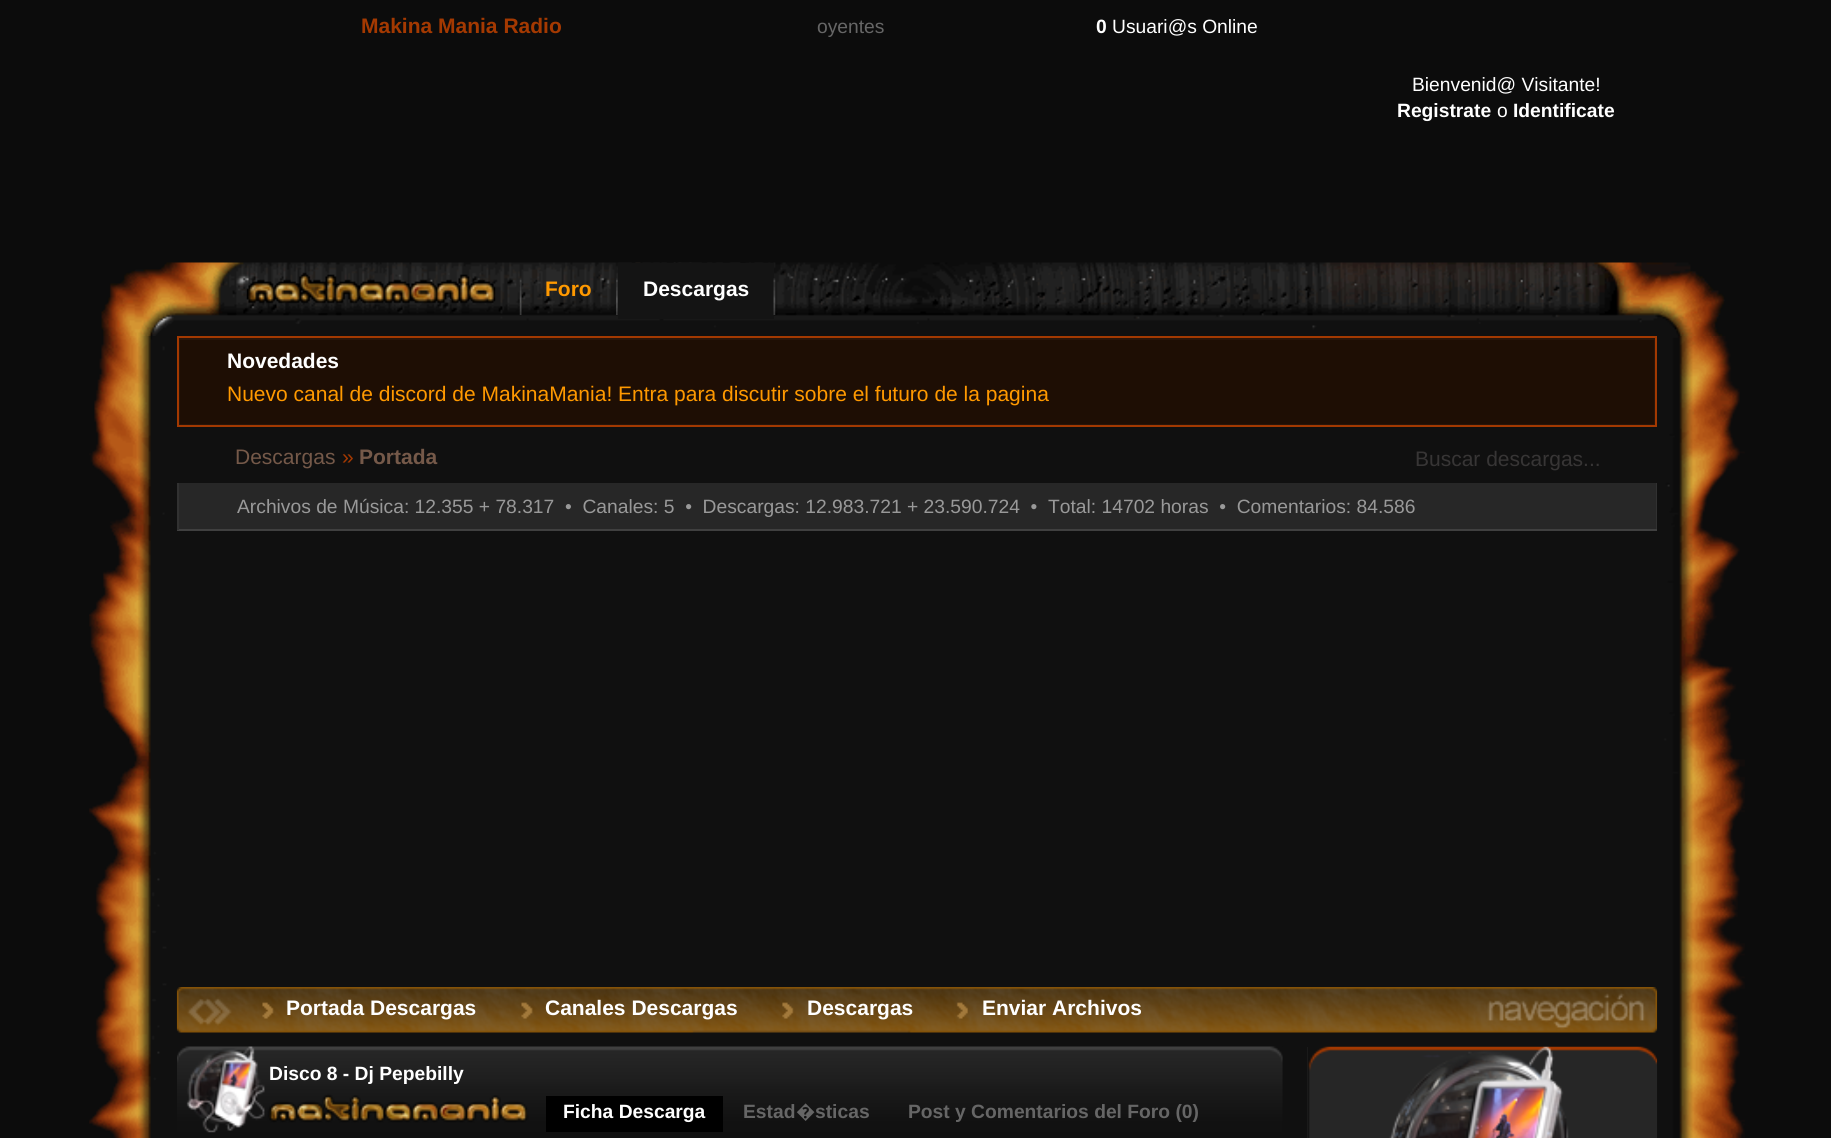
import math
import cairo



def draw_image(context, path, x, y, w, h):
    context.save()
    context.set_source_surface(cairo.ImageSurface.create_from_png(path), x, y)
    context.rectangle(x, y, w, h)
    context.fill()
    context.restore()


def draw(context):
    context.set_source_rgb(12 / 255, 12 / 255, 12 / 255)
    context.paint()
    draw_image(context, "images/1.png", 101, 262, 1624, 74)
    draw_image(context, "images/2.png", 246, 272, 250, 32)
    draw_image(context, "images/3.png", 519, 278, 3, 37)
    draw_image(context, "images/4.png", 616, 278, 2, 37)
    context.set_source_rgb(20 / 255, 20 / 255, 20 / 255)
    context.rectangle(618, 263, 156, 56)
    context.fill()
    draw_image(context, "images/5.png", 773, 278, 3, 37)
    draw_image(context, "images/6.png", 89, 336, 1656, 802)
    context.set_source_rgb(41 / 255, 21 / 255, 10 / 255)
    context.rectangle(178, 337, 1478, 89)
    context.fill_preserve()
    context.set_source_rgb(163 / 255, 57 / 255, 1 / 255)
    context.stroke()
    context.set_source_rgb(30 / 255, 14 / 255, 4 / 255)
    context.rectangle(180, 340, 1474, 84)
    context.fill()
    context.set_source_rgb(39 / 255, 39 / 255, 39 / 255)
    context.rectangle(179, 483, 1477, 46)
    context.fill()
    context.set_source_rgb(49 / 255, 49 / 255, 49 / 255)
    context.rectangle(1656, 483, 1, 47)
    context.fill()
    context.set_source_rgb(64 / 255, 64 / 255, 64 / 255)
    context.rectangle(177, 529, 1480, 2)
    context.fill()
    context.set_source_rgb(49 / 255, 49 / 255, 49 / 255)
    context.rectangle(177, 483, 2, 47)
    context.fill()
    draw_image(context, "images/7.png", 176, 987, 1482, 46)
    draw_image(context, "images/8.png", 262, 1002, 12, 17)
    draw_image(context, "images/9.png", 521, 1002, 12, 17)
    draw_image(context, "images/10.png", 782, 1002, 12, 17)
    draw_image(context, "images/11.png", 956, 1002, 12, 17)
    draw_image(context, "images/12.png", 177, 1046, 1106, 87)
    context.set_source_rgb(0, 0, 0)
    context.rectangle(546, 1096, 177, 36)
    context.fill()
    context.set_source_rgb(38 / 255, 38 / 255, 38 / 255)
    context.rectangle(1307, 1047, 1, 91)
    context.fill()
    draw_image(context, "images/13.png", 1307, 1046, 351, 92)
    context.select_font_face("Liberation Sans", cairo.FontSlant.NORMAL, cairo.FontWeight.BOLD)
    context.set_font_size(21)
    context.set_source_rgb(164 / 255, 57 / 255, 1 / 255)
    context.move_to(361, 33)
    context.show_text("Makina Mania Radio")
    context.select_font_face("Liberation Sans")
    context.set_font_size(19.25)
    context.set_source_rgb(102 / 255, 102 / 255, 102 / 255)
    context.move_to(817, 33)
    context.show_text("oyentes")
    context.select_font_face("Liberation Sans", cairo.FontSlant.NORMAL, cairo.FontWeight.BOLD)
    context.set_source_rgb(1, 1, 1)
    context.move_to(1096, 33)
    context.show_text("0")
    context.select_font_face("Liberation Sans")
    context.move_to(1112, 33)
    context.show_text("Usuari@s Online")
    context.move_to(1412, 91)
    context.show_text("Bienvenid@ Visitante!")
    context.select_font_face("Liberation Sans", cairo.FontSlant.NORMAL, cairo.FontWeight.BOLD)
    context.move_to(1397, 117)
    context.show_text("Registrate")
    context.select_font_face("Liberation Sans")
    context.move_to(1497, 117)
    context.show_text("o")
    context.select_font_face("Liberation Sans", cairo.FontSlant.NORMAL, cairo.FontWeight.BOLD)
    context.move_to(1513, 117)
    context.show_text("Identificate")
    context.set_font_size(21)
    context.set_source_rgb(1, 153 / 255, 0)
    context.move_to(545, 296)
    context.show_text("Foro")
    context.set_source_rgb(1, 1, 1)
    context.move_to(643, 296)
    context.show_text("Descargas")
    context.move_to(227, 368)
    context.show_text("Novedades")
    context.select_font_face("Liberation Sans")
    context.set_source_rgb(1, 153 / 255, 0)
    context.move_to(227, 401)
    context.show_text("Nuevo canal de discord de MakinaMania! Entra para discutir sobre el futuro de la pagina")
    context.set_source_rgb(117 / 255, 89 / 255, 73 / 255)
    context.move_to(235, 464)
    context.show_text("Descargas")
    context.set_source_rgb(164 / 255, 57 / 255, 1 / 255)
    context.move_to(342, 464)
    context.show_text("»")
    context.select_font_face("Liberation Sans", cairo.FontSlant.NORMAL, cairo.FontWeight.BOLD)
    context.set_source_rgb(117 / 255, 89 / 255, 73 / 255)
    context.move_to(359, 464)
    context.show_text("Portada")
    context.select_font_face("Liberation Sans")
    context.set_source_rgb(55 / 255, 53 / 255, 53 / 255)
    context.move_to(1415, 466)
    context.show_text("Buscar descargas...")
    context.set_font_size(19.25)
    context.set_source_rgb(153 / 255, 153 / 255, 153 / 255)
    context.move_to(237, 513)
    context.show_text("Archivos de Música: 12.355 + 78.317  •  Canales: 5  •  Descargas: 12.983.721 + 23.590.724  •  Total: 14702 horas  •  Comentarios: 84.586")
    context.select_font_face("Liberation Sans", cairo.FontSlant.NORMAL, cairo.FontWeight.BOLD)
    context.set_font_size(21)
    context.set_source_rgb(1, 1, 1)
    context.move_to(286, 1015)
    context.show_text("Portada Descargas")
    context.move_to(545, 1015)
    context.show_text("Canales Descargas")
    context.move_to(807, 1015)
    context.show_text("Descargas")
    context.move_to(982, 1015)
    context.show_text("Enviar Archivos")
    context.set_font_size(19.25)
    context.move_to(269, 1080)
    context.show_text("Disco 8 - Dj Pepebilly")
    context.move_to(563, 1118)
    context.show_text("Ficha Descarga")
    context.set_source_rgb(102 / 255, 102 / 255, 102 / 255)
    context.move_to(743, 1118)
    context.show_text("Estad")
    context.select_font_face("Noto Sans", cairo.FontSlant.NORMAL, cairo.FontWeight.BOLD)
    context.move_to(796, 1118)
    context.show_text("�")
    context.select_font_face("Liberation Sans", cairo.FontSlant.NORMAL, cairo.FontWeight.BOLD)
    context.move_to(815, 1118)
    context.show_text("sticas")
    context.move_to(908, 1118)
    context.show_text("Post y Comentarios del Foro (0)")


surface = cairo.ImageSurface(cairo.Format.RGB24, 1831, 1138)
context = cairo.Context(surface)
options = cairo.FontOptions()
options.set_hint_metrics(cairo.HintMetrics.OFF)
options.set_hint_style(cairo.HintStyle.NONE)
context.set_font_options(options)
context.set_miter_limit(4)
draw(context)
surface.write_to_png("out.png")
